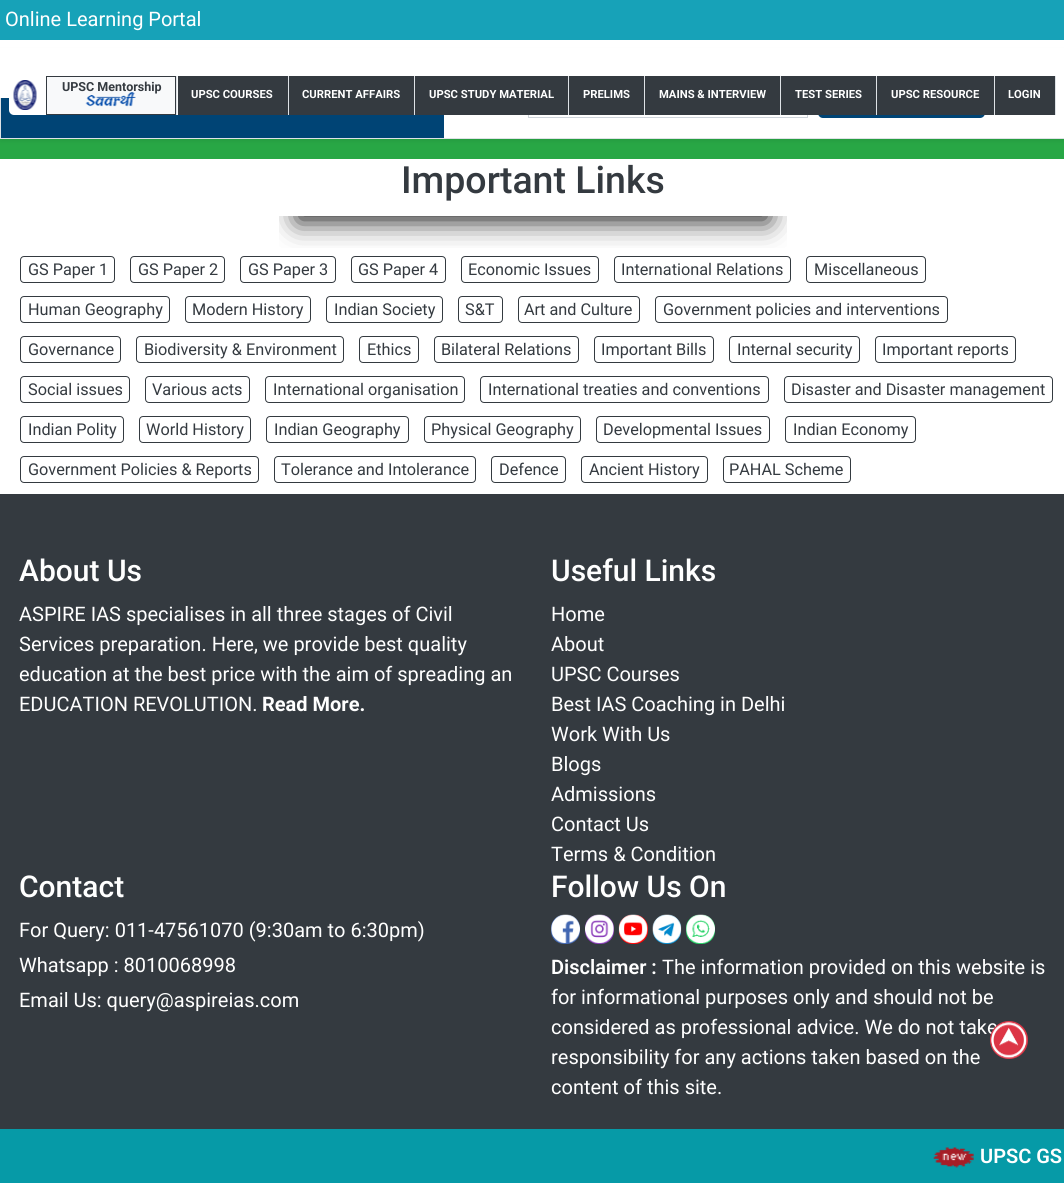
import math
import cairo



def rounded_rect(context, x, y, w, h, r):
    context.new_sub_path()
    for i, (u, v) in enumerate([(x + w - r, y + h - r), (x + r, y + h - r), (x + r, y + r), (x + w - r, y + r)]):
        context.arc(u, v, r, i * math.pi / 2, (i + 1) * math.pi / 2)
    context.close_path()


def draw_shadow(context, x, y, w, h, r, blur, alpha):
    context.push_group_with_content(cairo.Content.ALPHA)
    context.set_operator(cairo.Operator.SOURCE)
    for i in range(15, -16, -2):
        e = blur * i / 6
        if min(w, h) + 2 * e > 0:
            context.set_source_rgba(0, 0, 0, alpha * math.erfc((i - 1) / 8.5) / 2)
            rounded_rect(context, x - e, y - e, w + 2 * e, h + 2 * e, max(0, min(r + e + blur * .6, min(w, h) / 2 + e)))
            context.fill()
    context.mask(context.pop_group())


def draw_image(context, path, x, y, w, h):
    context.save()
    context.set_source_surface(cairo.ImageSurface.create_from_png(path), x, y)
    context.rectangle(x, y, w, h)
    context.fill()
    context.restore()


def draw(context):
    context.set_source_rgb(1, 1, 1)
    context.paint()
    context.set_source_rgb(40 / 255, 167 / 255, 69 / 255)
    context.rectangle(0, 139, 1064, 20)
    context.fill()
    context.set_source_rgb(0, 0, 0)
    draw_shadow(context, 0, 51, 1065, 90, 0, 2.5, 0.07)
    context.rectangle(0.5, 49.5, 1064, 89)
    context.set_source_rgb(222 / 255, 226 / 255, 230 / 255)
    context.set_line_width(1)
    context.stroke()
    context.set_source_rgb(1, 1, 1)
    context.rectangle(444, 98, 620, 40)
    context.fill()
    context.rectangle(528.5, 70.5, 279, 47)
    context.set_source_rgb(206 / 255, 212 / 255, 218 / 255)
    context.stroke()
    context.set_source_rgb(0, 68 / 255, 117 / 255)
    rounded_rect(context, 818, 70, 167, 48, 5)
    context.fill()
    context.set_source_rgb(1, 1, 1)
    context.rectangle(0, 48, 1064, 50)
    context.fill()
    context.set_source_rgb(23 / 255, 162 / 255, 184 / 255)
    context.rectangle(0, 0, 1064, 40)
    context.fill()
    context.set_source_rgb(0, 68 / 255, 117 / 255)
    context.rectangle(1, 98, 443, 40)
    context.fill()
    context.set_source_rgb(1, 1, 1)
    rounded_rect(context, 9, 70, 1047, 45, 5)
    context.fill()
    draw_image(context, "images/1.png", 13, 80, 24, 30)
    context.set_source_rgb(248 / 255, 249 / 255, 250 / 255)
    context.rectangle(47, 76, 131, 39)
    context.fill()
    context.set_source_rgb(222 / 255, 226 / 255, 230 / 255)
    context.rectangle(176, 76, 1, 39)
    context.fill()
    context.rectangle(46.5, 76.5, 129, 38)
    context.set_source_rgb(52 / 255, 58 / 255, 64 / 255)
    context.stroke()
    context.rectangle(178, 76, 110, 39)
    context.fill()
    context.set_source_rgb(222 / 255, 226 / 255, 230 / 255)
    context.rectangle(288, 76, 1, 39)
    context.fill()
    context.set_source_rgb(52 / 255, 58 / 255, 64 / 255)
    context.rectangle(289, 76, 125, 39)
    context.fill()
    context.set_source_rgb(222 / 255, 226 / 255, 230 / 255)
    context.rectangle(414, 76, 1, 39)
    context.fill()
    context.set_source_rgb(52 / 255, 58 / 255, 64 / 255)
    context.rectangle(415, 76, 153, 39)
    context.fill()
    context.set_source_rgb(222 / 255, 226 / 255, 230 / 255)
    context.rectangle(568, 76, 1, 39)
    context.fill()
    context.set_source_rgb(52 / 255, 58 / 255, 64 / 255)
    context.rectangle(569, 76, 75, 39)
    context.fill()
    context.set_source_rgb(222 / 255, 226 / 255, 230 / 255)
    context.rectangle(644, 76, 1, 39)
    context.fill()
    context.set_source_rgb(52 / 255, 58 / 255, 64 / 255)
    context.rectangle(645, 76, 135, 39)
    context.fill()
    context.set_source_rgb(222 / 255, 226 / 255, 230 / 255)
    context.rectangle(780, 76, 1, 39)
    context.fill()
    context.set_source_rgb(52 / 255, 58 / 255, 64 / 255)
    context.rectangle(781, 76, 213, 39)
    context.fill()
    context.set_source_rgb(222 / 255, 226 / 255, 230 / 255)
    context.rectangle(876, 76, 1, 39)
    context.fill()
    context.rectangle(994, 76, 1, 39)
    context.fill()
    context.set_source_rgb(52 / 255, 58 / 255, 64 / 255)
    context.rectangle(995, 76, 60, 39)
    context.fill()
    context.set_source_rgb(222 / 255, 226 / 255, 230 / 255)
    context.rectangle(1055, 76, 1, 39)
    context.fill()
    rounded_rect(context, 240.5, 256.5, 95, 26, 3.5)
    context.set_source_rgb(52 / 255, 58 / 255, 64 / 255)
    context.stroke()
    rounded_rect(context, 351.5, 256.5, 94, 26, 3.5)
    context.stroke()
    rounded_rect(context, 461.5, 256.5, 137, 26, 3.5)
    context.stroke()
    rounded_rect(context, 614.5, 256.5, 176, 26, 3.5)
    context.stroke()
    rounded_rect(context, 806.5, 256.5, 119, 26, 3.5)
    context.stroke()
    context.save()
    context.rectangle(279, 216, 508, 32)
    context.clip()
    context.set_source_rgb(0, 0, 0)
    draw_shadow(context, 300, 209, 466, 10, 0, 14.5, 1)
    context.restore()
    rounded_rect(context, 20.5, 256.5, 94, 26, 3.5)
    context.stroke()
    rounded_rect(context, 130.5, 256.5, 94, 26, 3.5)
    context.stroke()
    rounded_rect(context, 20.5, 296.5, 149, 26, 3.5)
    context.stroke()
    rounded_rect(context, 185.5, 296.5, 125, 26, 3.5)
    context.stroke()
    rounded_rect(context, 326.5, 296.5, 116, 26, 3.5)
    context.stroke()
    rounded_rect(context, 458.5, 296.5, 44, 26, 3.5)
    context.stroke()
    rounded_rect(context, 518.5, 296.5, 121, 26, 3.5)
    context.stroke()
    rounded_rect(context, 655.5, 296.5, 292, 26, 3.5)
    context.stroke()
    rounded_rect(context, 20.5, 336.5, 100, 26, 3.5)
    context.stroke()
    rounded_rect(context, 136.5, 336.5, 207, 26, 3.5)
    context.stroke()
    rounded_rect(context, 359.5, 336.5, 59, 26, 3.5)
    context.stroke()
    rounded_rect(context, 434.5, 336.5, 144, 26, 3.5)
    context.stroke()
    rounded_rect(context, 594.5, 336.5, 119, 26, 3.5)
    context.stroke()
    rounded_rect(context, 729.5, 336.5, 130, 26, 3.5)
    context.stroke()
    rounded_rect(context, 875.5, 336.5, 140, 26, 3.5)
    context.stroke()
    rounded_rect(context, 20.5, 376.5, 109, 26, 3.5)
    context.stroke()
    rounded_rect(context, 145.5, 376.5, 104, 26, 3.5)
    context.stroke()
    rounded_rect(context, 265.5, 376.5, 199, 26, 3.5)
    context.stroke()
    rounded_rect(context, 480.5, 376.5, 288, 26, 3.5)
    context.stroke()
    rounded_rect(context, 784.5, 376.5, 268, 26, 3.5)
    context.stroke()
    rounded_rect(context, 20.5, 416.5, 103, 26, 3.5)
    context.stroke()
    rounded_rect(context, 139.5, 416.5, 111, 26, 3.5)
    context.stroke()
    rounded_rect(context, 266.5, 416.5, 142, 26, 3.5)
    context.stroke()
    rounded_rect(context, 424.5, 416.5, 156, 26, 3.5)
    context.stroke()
    rounded_rect(context, 596.5, 416.5, 173, 26, 3.5)
    context.stroke()
    rounded_rect(context, 785.5, 416.5, 130, 26, 3.5)
    context.stroke()
    rounded_rect(context, 20.5, 456.5, 238, 26, 3.5)
    context.stroke()
    rounded_rect(context, 274.5, 456.5, 201, 26, 3.5)
    context.stroke()
    rounded_rect(context, 491.5, 456.5, 74, 26, 3.5)
    context.stroke()
    rounded_rect(context, 581.5, 456.5, 126, 26, 3.5)
    context.stroke()
    rounded_rect(context, 723.5, 456.5, 127, 26, 3.5)
    context.stroke()
    context.rectangle(0, 494, 1064, 635)
    context.fill()
    context.set_source_rgb(66 / 255, 103 / 255, 178 / 255)
    rounded_rect(context, 551, 915, 29, 29, 13)
    context.fill()
    draw_image(context, "images/3.png", 551, 914, 29, 30)
    context.set_source_rgb(138 / 255, 58 / 255, 185 / 255)
    rounded_rect(context, 585, 915, 29, 29, 13)
    context.fill()
    draw_image(context, "images/4.png", 585, 914, 29, 30)
    context.set_source_rgb(1, 0, 0)
    rounded_rect(context, 619, 915, 29, 29, 13)
    context.fill()
    draw_image(context, "images/5.png", 618, 914, 30, 30)
    context.set_source_rgb(0, 136 / 255, 204 / 255)
    rounded_rect(context, 653, 915, 28, 29, 13)
    context.fill()
    draw_image(context, "images/6.png", 652, 914, 30, 30)
    context.set_source_rgb(37 / 255, 211 / 255, 102 / 255)
    rounded_rect(context, 686, 915, 29, 29, 13)
    context.fill()
    draw_image(context, "images/7.png", 686, 914, 29, 30)
    context.set_source_rgb(6 / 255, 154 / 255, 167 / 255)
    context.rectangle(0, 1129, 1064, 54)
    context.fill()
    draw_image(context, "images/9.png", 933, 1147, 41, 21)
    context.select_font_face("Roboto")
    context.set_font_size(20)
    context.set_source_rgb(1, 1, 1)
    context.move_to(5, 26)
    context.show_text("Online Learning Portal")
    context.select_font_face("Roboto", cairo.FontSlant.NORMAL, cairo.FontWeight.BOLD)
    context.set_font_size(12.5)
    context.set_source_rgb(52 / 255, 58 / 255, 64 / 255)
    context.move_to(62, 91)
    context.show_text("UPSC Mentorship")
    draw_image(context, "images/2.png", 85, 92, 51, 15)
    context.set_font_size(11.25)
    context.set_source_rgb(1, 1, 1)
    context.move_to(191, 98)
    context.show_text("UPSC COURSES")
    context.move_to(302, 98)
    context.show_text("CURRENT AFFAIRS")
    context.move_to(429, 98)
    context.show_text("UPSC STUDY MATERIAL")
    context.move_to(583, 98)
    context.show_text("PRELIMS")
    context.move_to(659, 98)
    context.show_text("MAINS & INTERVIEW")
    context.move_to(795, 98)
    context.show_text("TEST SERIES")
    context.move_to(891, 98)
    context.show_text("UPSC RESOURCE")
    context.move_to(1008, 98)
    context.show_text("LOGIN")
    context.select_font_face("Roboto Medium")
    context.set_font_size(37.5)
    context.set_source_rgb(52 / 255, 58 / 255, 64 / 255)
    context.move_to(401, 193)
    context.show_text("Important Links")
    context.select_font_face("Roboto")
    context.set_font_size(16.25)
    context.move_to(28, 275)
    context.show_text("GS Paper 1")
    context.move_to(138, 275)
    context.show_text("GS Paper 2")
    context.move_to(248, 275)
    context.show_text("GS Paper 3")
    context.move_to(358, 275)
    context.show_text("GS Paper 4")
    context.move_to(468, 275)
    context.show_text("Economic Issues")
    context.move_to(621, 275)
    context.show_text("International Relations")
    context.move_to(814, 275)
    context.show_text("Miscellaneous")
    context.move_to(28, 315)
    context.show_text("Human Geography")
    context.move_to(192, 315)
    context.show_text("Modern History")
    context.move_to(334, 315)
    context.show_text("Indian Society")
    context.move_to(465, 315)
    context.show_text("S&T")
    context.move_to(524, 315)
    context.show_text("Art and Culture")
    context.move_to(663, 315)
    context.show_text("Government policies and interventions")
    context.move_to(28, 355)
    context.show_text("Governance")
    context.move_to(144, 355)
    context.show_text("Biodiversity & Environment")
    context.move_to(367, 355)
    context.show_text("Ethics")
    context.move_to(441, 355)
    context.show_text("Bilateral Relations")
    context.move_to(601, 355)
    context.show_text("Important Bills")
    context.move_to(737, 355)
    context.show_text("Internal security")
    context.move_to(882, 355)
    context.show_text("Important reports")
    context.move_to(28, 395)
    context.show_text("Social issues")
    context.move_to(152, 395)
    context.show_text("Various acts")
    context.move_to(273, 395)
    context.show_text("International organisation")
    context.move_to(488, 395)
    context.show_text("International treaties and conventions")
    context.move_to(791, 395)
    context.show_text("Disaster and Disaster management")
    context.move_to(28, 435)
    context.show_text("Indian Polity")
    context.move_to(146, 435)
    context.show_text("World History")
    context.move_to(274, 435)
    context.show_text("Indian Geography")
    context.move_to(431, 435)
    context.show_text("Physical Geography")
    context.move_to(603, 435)
    context.show_text("Developmental Issues")
    context.move_to(793, 435)
    context.show_text("Indian Economy")
    context.move_to(28, 475)
    context.show_text("Government Policies & Reports")
    context.move_to(281, 475)
    context.show_text("Tolerance and Intolerance")
    context.move_to(499, 475)
    context.show_text("Defence")
    context.move_to(589, 475)
    context.show_text("Ancient History")
    context.move_to(729, 475)
    context.show_text("PAHAL Scheme")
    context.select_font_face("Roboto Medium")
    context.set_font_size(30)
    context.set_source_rgb(1, 1, 1)
    context.move_to(19, 581)
    context.show_text("About Us")
    context.select_font_face("Roboto")
    context.set_font_size(20)
    context.move_to(19, 621)
    context.show_text("ASPIRE IAS specialises in all three stages of Civil")
    context.move_to(19, 651)
    context.show_text("Services preparation. Here, we provide best quality")
    context.move_to(19, 681)
    context.show_text("education at the best price with the aim of spreading an")
    context.move_to(19, 711)
    context.show_text("EDUCATION REVOLUTION.")
    context.select_font_face("Roboto", cairo.FontSlant.NORMAL, cairo.FontWeight.BOLD)
    context.move_to(262, 711)
    context.show_text("Read More.")
    context.select_font_face("Roboto Medium")
    context.set_font_size(30)
    context.move_to(551, 581)
    context.show_text("Useful Links")
    context.select_font_face("Roboto")
    context.set_font_size(20)
    context.move_to(551, 621)
    context.show_text("Home")
    context.move_to(551, 651)
    context.show_text("About")
    context.move_to(551, 681)
    context.show_text("UPSC Courses")
    context.move_to(551, 711)
    context.show_text("Best IAS Coaching in Delhi")
    context.move_to(551, 741)
    context.show_text("Work With Us")
    context.move_to(551, 771)
    context.show_text("Blogs")
    context.move_to(551, 801)
    context.show_text("Admissions")
    context.move_to(551, 831)
    context.show_text("Contact Us")
    context.move_to(551, 861)
    context.show_text("Terms & Condition")
    context.select_font_face("Roboto Medium")
    context.set_font_size(30)
    context.move_to(19, 897)
    context.show_text("Contact")
    context.select_font_face("Roboto")
    context.set_font_size(20)
    context.move_to(19, 937)
    context.show_text("For Query: 011-47561070 (9:30am to 6:30pm)")
    context.move_to(19, 972)
    context.show_text("Whatsapp : 8010068998")
    context.move_to(19, 1007)
    context.show_text("Email Us: query@aspireias.com")
    context.select_font_face("Roboto Medium")
    context.set_font_size(30)
    context.move_to(551, 897)
    context.show_text("Follow Us On")
    context.select_font_face("Roboto SemiBold")
    context.set_font_size(20)
    context.move_to(551, 974)
    context.show_text("Disclaimer :")
    context.select_font_face("Roboto")
    context.move_to(662, 974)
    context.show_text("The information provided on this website is")
    context.move_to(551, 1004)
    context.show_text("for informational purposes only and should not be")
    context.move_to(551, 1034)
    context.show_text("considered as professional advice. We do not take")
    context.move_to(551, 1064)
    context.show_text("responsibility for any actions taken based on the")
    context.move_to(551, 1094)
    context.show_text("content of this site.")
    context.set_source_rgb(220 / 255, 53 / 255, 69 / 255)
    context.new_path()
    context.arc(1009, 1040, 19, 0, 2 * math.pi)
    context.fill()
    draw_image(context, "images/8.png", 991, 1022, 36, 37)
    context.select_font_face("Roboto SemiBold")
    context.set_source_rgb(1, 1, 1)
    context.move_to(980, 1163)
    context.show_text("UPSC GS")


surface = cairo.ImageSurface(cairo.Format.RGB24, 1064, 1183)
context = cairo.Context(surface)
options = cairo.FontOptions()
options.set_hint_metrics(cairo.HintMetrics.OFF)
options.set_hint_style(cairo.HintStyle.NONE)
context.set_font_options(options)
context.set_miter_limit(4)
draw(context)
surface.write_to_png("out.png")
